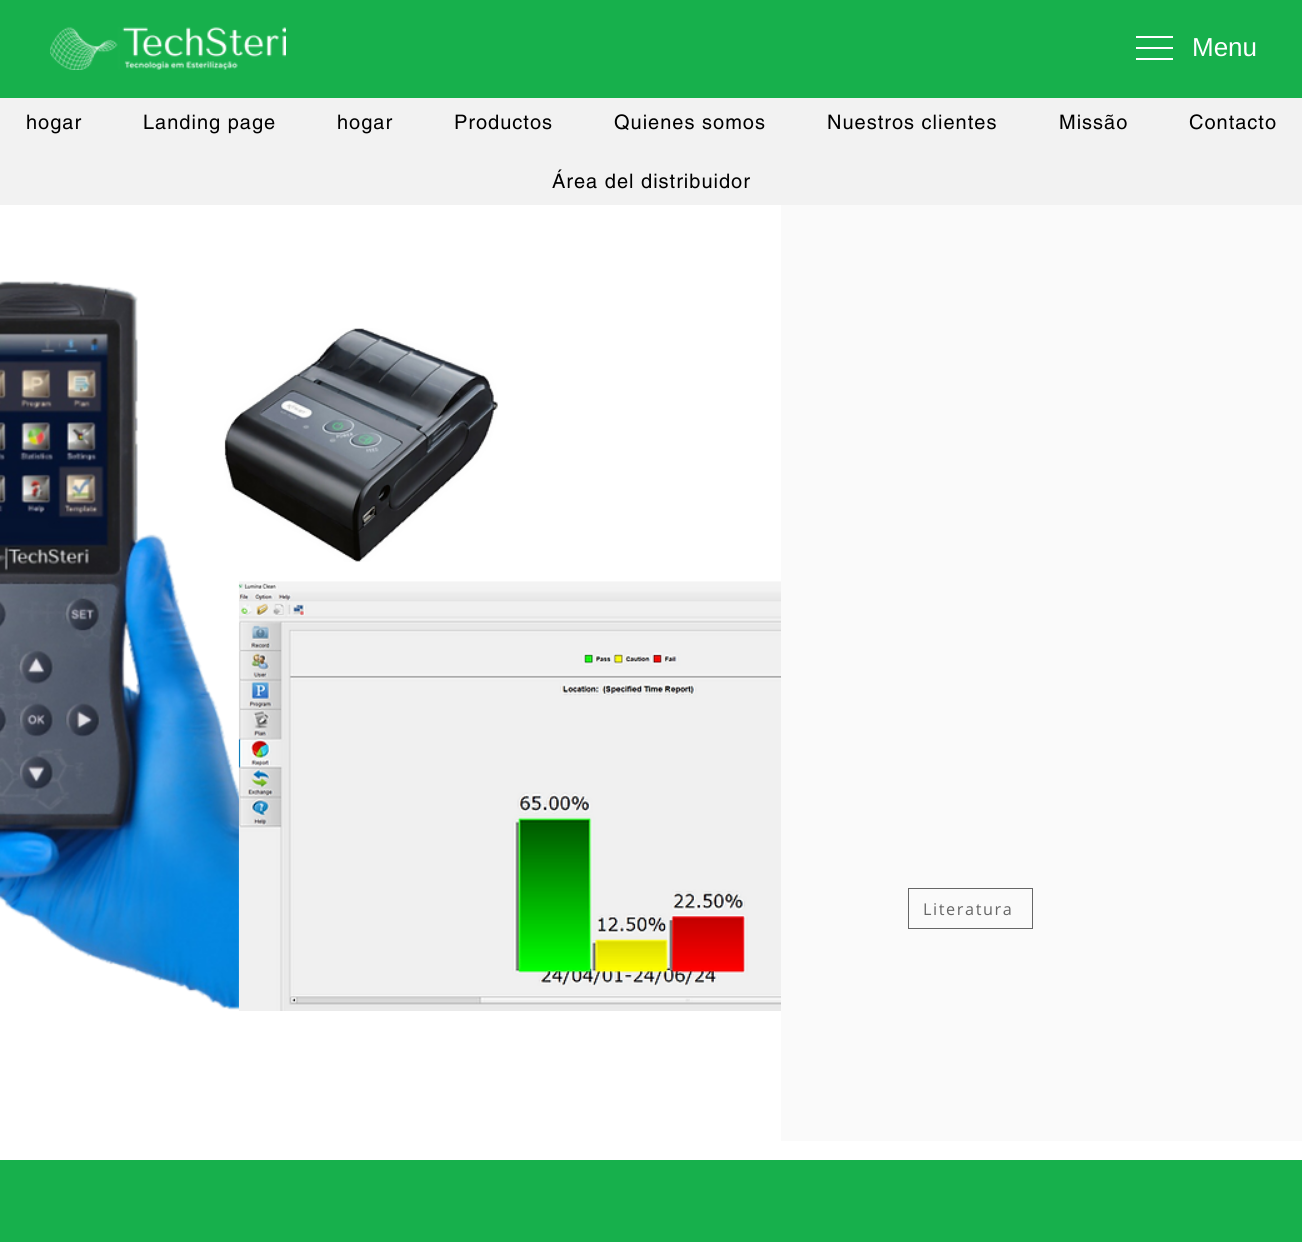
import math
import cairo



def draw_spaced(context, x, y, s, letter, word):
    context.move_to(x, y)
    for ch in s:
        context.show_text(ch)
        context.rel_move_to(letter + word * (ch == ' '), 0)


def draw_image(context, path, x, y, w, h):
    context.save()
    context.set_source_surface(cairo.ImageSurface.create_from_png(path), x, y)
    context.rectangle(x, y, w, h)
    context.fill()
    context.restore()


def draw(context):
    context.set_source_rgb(1, 1, 1)
    context.paint()
    context.set_source_rgb(23 / 255, 176 / 255, 76 / 255)
    context.rectangle(0, 0, 1302, 98)
    context.fill()
    draw_image(context, "images/1.png", 50, 27, 236, 43)
    context.set_source_rgb(1, 1, 1)
    context.rectangle(1136, 36, 37, 2)
    context.fill()
    context.rectangle(1136, 47, 37, 2)
    context.fill()
    context.rectangle(1136, 58, 37, 2)
    context.fill()
    context.set_source_rgb(242 / 255, 242 / 255, 242 / 255)
    context.rectangle(0, 98, 1302, 107)
    context.fill()
    draw_image(context, "images/2.png", 0, 281, 239, 729)
    draw_image(context, "images/3.png", 224, 328, 274, 234)
    draw_image(context, "images/4.png", 238, 581, 543, 430)
    context.set_source_rgb(250 / 255, 250 / 255, 250 / 255)
    context.rectangle(781, 205, 521, 936)
    context.fill()
    context.rectangle(908.5, 888.5, 124, 40)
    context.set_source_rgb(102 / 255, 102 / 255, 102 / 255)
    context.set_line_width(1)
    context.stroke()
    context.set_source_rgb(23 / 255, 176 / 255, 76 / 255)
    context.rectangle(0, 1160, 1302, 82)
    context.fill()
    context.select_font_face("Liberation Sans")
    context.set_font_size(26)
    context.set_source_rgb(1, 1, 1)
    context.move_to(1192, 56)
    context.show_text("Menu")
    context.select_font_face("helvetica")
    context.set_font_size(20)
    context.set_source_rgb(0, 0, 0)
    draw_spaced(context, 26, 129, "hogar", 1, 0)
    draw_spaced(context, 143, 129, "Landing page", 1, 0)
    draw_spaced(context, 337, 129, "hogar", 1, 0)
    draw_spaced(context, 454, 129, "Productos", 1, 0)
    draw_spaced(context, 614, 129, "Quienes somos", 1, 0)
    draw_spaced(context, 827, 129, "Nuestros clientes", 1, 0)
    draw_spaced(context, 1059, 129, "Missão", 1, 0)
    draw_spaced(context, 1189, 129, "Contacto", 1, 0)
    draw_spaced(context, 552, 188, "Área del distribuidor", 1, 0)
    context.select_font_face("Open Sans")
    context.set_font_size(16.25)
    context.set_source_rgb(102 / 255, 102 / 255, 102 / 255)
    draw_spaced(context, 923, 915, "Literatura", 1.6, 0)


surface = cairo.ImageSurface(cairo.Format.RGB24, 1302, 1242)
context = cairo.Context(surface)
options = cairo.FontOptions()
options.set_hint_metrics(cairo.HintMetrics.OFF)
options.set_hint_style(cairo.HintStyle.NONE)
context.set_font_options(options)
context.set_miter_limit(4)
draw(context)
surface.write_to_png("out.png")
